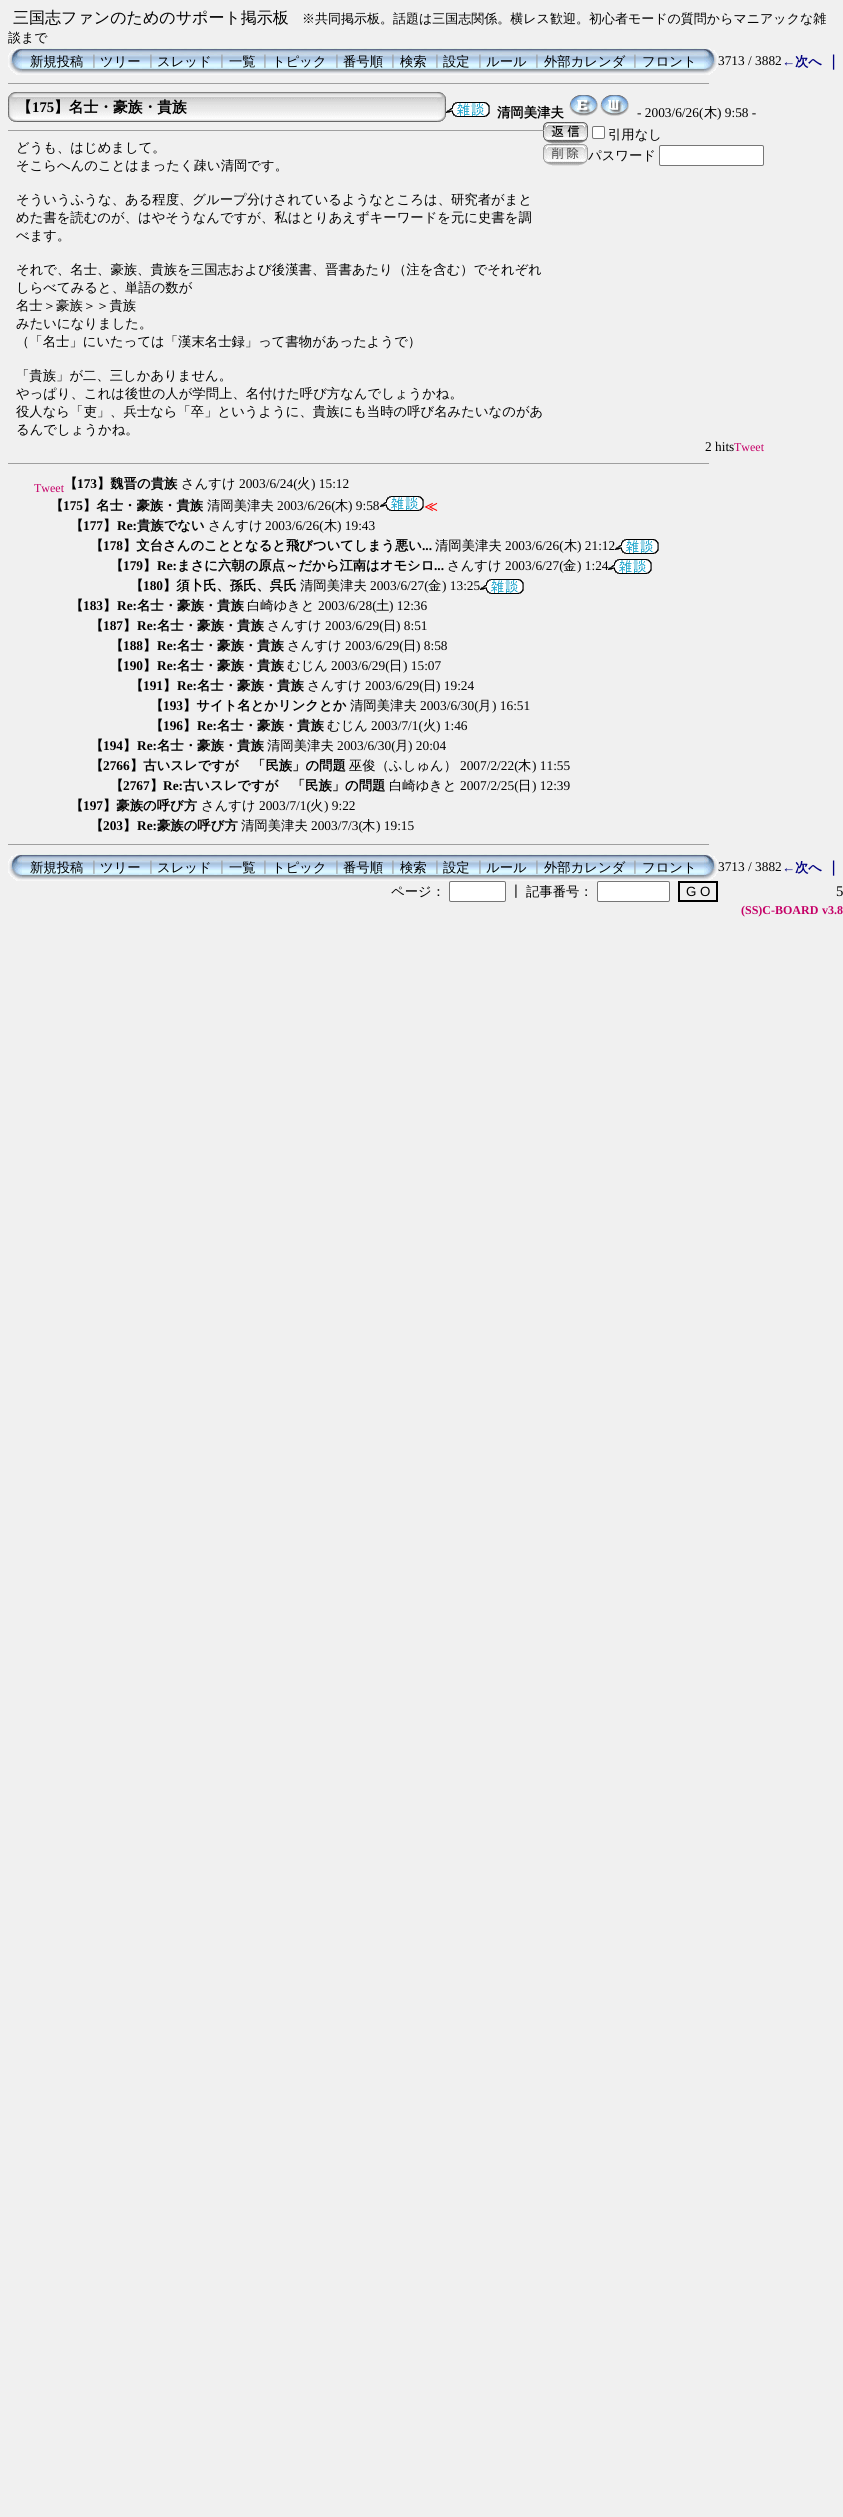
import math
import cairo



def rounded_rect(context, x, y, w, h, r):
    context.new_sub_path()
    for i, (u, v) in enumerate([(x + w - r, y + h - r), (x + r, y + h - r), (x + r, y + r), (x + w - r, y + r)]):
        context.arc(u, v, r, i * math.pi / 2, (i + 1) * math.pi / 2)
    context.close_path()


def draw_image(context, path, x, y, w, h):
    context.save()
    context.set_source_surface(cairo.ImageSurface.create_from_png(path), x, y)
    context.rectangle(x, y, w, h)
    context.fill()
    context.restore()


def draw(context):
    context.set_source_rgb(240 / 255, 240 / 255, 240 / 255)
    context.paint()
    draw_image(context, "images/1.png", 8, 48, 14, 27)
    draw_image(context, "images/2.png", 22, 48, 682, 27)
    draw_image(context, "images/3.png", 704, 48, 14, 27)
    context.set_source_rgb(159 / 255, 159 / 255, 159 / 255)
    context.rectangle(8, 83, 702, 1)
    context.fill()
    context.set_source_rgb(238 / 255, 238 / 255, 238 / 255)
    context.rectangle(709, 83, 1, 1)
    context.fill()
    draw_image(context, "images/4.png", 8, 92, 9, 30)
    draw_image(context, "images/5.png", 17, 92, 420, 30)
    draw_image(context, "images/6.png", 437, 92, 9, 30)
    draw_image(context, "images/7.png", 446, 102, 44, 15)
    draw_image(context, "images/8.png", 569, 95, 29, 21)
    draw_image(context, "images/9.png", 600, 95, 29, 21)
    draw_image(context, "images/10.png", 543, 122, 45, 22)
    context.set_source_rgb(159 / 255, 159 / 255, 159 / 255)
    context.rectangle(8, 130, 537, 1)
    context.fill()
    context.set_source_rgb(238 / 255, 238 / 255, 238 / 255)
    context.rectangle(544, 130, 1, 1)
    context.fill()
    context.set_source_rgb(1, 1, 1)
    rounded_rect(context, 592.5, 126.5, 12, 12, 1.5)
    context.fill_preserve()
    context.set_source_rgb(118 / 255, 118 / 255, 118 / 255)
    context.set_line_width(1)
    context.stroke()
    draw_image(context, "images/11.png", 543, 144, 45, 22)
    context.set_source_rgb(1, 1, 1)
    rounded_rect(context, 659.5, 145.5, 104, 20, 1.5)
    context.fill_preserve()
    context.set_source_rgb(118 / 255, 118 / 255, 118 / 255)
    context.stroke()
    context.set_source_rgb(159 / 255, 159 / 255, 159 / 255)
    context.rectangle(8, 463, 702, 1)
    context.fill()
    context.set_source_rgb(238 / 255, 238 / 255, 238 / 255)
    context.rectangle(709, 463, 1, 1)
    context.fill()
    draw_image(context, "images/7.png", 380, 496, 44, 15)
    draw_image(context, "images/7.png", 615, 539, 44, 15)
    draw_image(context, "images/7.png", 608, 559, 44, 15)
    draw_image(context, "images/7.png", 480, 579, 44, 15)
    context.set_source_rgb(159 / 255, 159 / 255, 159 / 255)
    context.rectangle(8, 844, 702, 1)
    context.fill()
    context.set_source_rgb(238 / 255, 238 / 255, 238 / 255)
    context.rectangle(709, 844, 1, 1)
    context.fill()
    draw_image(context, "images/1.png", 8, 854, 14, 27)
    draw_image(context, "images/2.png", 22, 854, 682, 27)
    draw_image(context, "images/3.png", 704, 854, 14, 27)
    context.set_source_rgb(1, 1, 1)
    rounded_rect(context, 449.5, 881.5, 56, 20, 1.5)
    context.fill_preserve()
    context.set_source_rgb(118 / 255, 118 / 255, 118 / 255)
    context.stroke()
    context.set_source_rgb(1, 1, 1)
    rounded_rect(context, 597.5, 881.5, 72, 20, 1.5)
    context.fill_preserve()
    context.set_source_rgb(118 / 255, 118 / 255, 118 / 255)
    context.stroke()
    context.rectangle(679, 882, 38, 19)
    context.set_source_rgb(0, 0, 0)
    context.set_line_width(2)
    context.stroke()
    context.select_font_face("WenQuanYi Zen Hei Medium")
    context.set_font_size(16)
    context.move_to(13, 23)
    context.show_text("三国志ファンのためのサポート掲示板")
    context.set_font_size(13)
    context.move_to(302, 23)
    context.show_text("※共同掲示板。話題は三国志関係。横レス歓迎。初心者モードの質問からマニアックな雑")
    context.move_to(8, 42)
    context.show_text("談まで")
    context.set_font_size(13.35)
    context.move_to(30, 66)
    context.show_text("新規投稿")
    context.set_source_rgb(153 / 255, 153 / 255, 153 / 255)
    context.move_to(87, 66)
    context.show_text("┃")
    context.set_source_rgb(0, 0, 0)
    context.move_to(100, 66)
    context.show_text("ツリー")
    context.set_source_rgb(153 / 255, 153 / 255, 153 / 255)
    context.move_to(144, 66)
    context.show_text("┃")
    context.set_source_rgb(0, 0, 0)
    context.move_to(157, 66)
    context.show_text("スレッド")
    context.set_source_rgb(153 / 255, 153 / 255, 153 / 255)
    context.move_to(215, 66)
    context.show_text("┃")
    context.set_source_rgb(0, 0, 0)
    context.move_to(229, 66)
    context.show_text("一覧")
    context.set_source_rgb(153 / 255, 153 / 255, 153 / 255)
    context.move_to(258, 66)
    context.show_text("┃")
    context.set_source_rgb(0, 0, 0)
    context.move_to(272, 66)
    context.show_text("トピック")
    context.set_source_rgb(153 / 255, 153 / 255, 153 / 255)
    context.move_to(330, 66)
    context.show_text("┃")
    context.set_source_rgb(0, 0, 0)
    context.move_to(343, 66)
    context.show_text("番号順")
    context.set_source_rgb(153 / 255, 153 / 255, 153 / 255)
    context.move_to(386, 66)
    context.show_text("┃")
    context.set_source_rgb(0, 0, 0)
    context.move_to(400, 66)
    context.show_text("検索")
    context.set_source_rgb(153 / 255, 153 / 255, 153 / 255)
    context.move_to(430, 66)
    context.show_text("┃")
    context.set_source_rgb(0, 0, 0)
    context.move_to(443, 66)
    context.show_text("設定")
    context.set_source_rgb(153 / 255, 153 / 255, 153 / 255)
    context.move_to(473, 66)
    context.show_text("┃")
    context.set_source_rgb(0, 0, 0)
    context.move_to(486, 66)
    context.show_text("ルール")
    context.set_source_rgb(153 / 255, 153 / 255, 153 / 255)
    context.move_to(530, 66)
    context.show_text("┃")
    context.set_source_rgb(0, 0, 0)
    context.move_to(544, 66)
    context.show_text("外部カレンダ")
    context.set_source_rgb(153 / 255, 153 / 255, 153 / 255)
    context.move_to(628, 66)
    context.show_text("┃")
    context.set_source_rgb(0, 0, 0)
    context.move_to(642, 66)
    context.show_text("フロント")
    context.select_font_face("Liberation Serif")
    context.move_to(718, 65)
    context.show_text("3713 / 3882")
    context.select_font_face("Liberation Serif", cairo.FontSlant.NORMAL, cairo.FontWeight.BOLD)
    context.set_source_rgb(0, 0, 128 / 255)
    context.move_to(782, 66)
    context.show_text("←")
    context.select_font_face("WenQuanYi Zen Hei", cairo.FontSlant.NORMAL, cairo.FontWeight.BOLD)
    context.move_to(795, 66)
    context.show_text("次へ")
    context.set_font_size(14.75)
    context.move_to(826, 66)
    context.show_text("｜")
    context.set_source_rgb(0, 0, 0)
    context.move_to(17, 112)
    context.show_text("【")
    context.select_font_face("Liberation Serif", cairo.FontSlant.NORMAL, cairo.FontWeight.BOLD)
    context.move_to(32, 112)
    context.show_text("175")
    context.select_font_face("WenQuanYi Zen Hei", cairo.FontSlant.NORMAL, cairo.FontWeight.BOLD)
    context.move_to(54, 112)
    context.show_text("】名士・豪族・貴族")
    context.set_font_size(13.35)
    context.move_to(497, 117)
    context.show_text("清岡美津夫")
    context.select_font_face("Liberation Serif")
    context.move_to(637, 117)
    context.show_text("- 2003/6/26(")
    context.select_font_face("WenQuanYi Zen Hei Medium")
    context.move_to(704, 117)
    context.show_text("木")
    context.select_font_face("Liberation Serif")
    context.move_to(717, 117)
    context.show_text(") 9:58 -")
    context.select_font_face("WenQuanYi Zen Hei Medium")
    context.move_to(16, 152)
    context.show_text("どうも、はじめまして。")
    context.move_to(16, 170)
    context.show_text("そこらへんのことはまったく疎い清岡です。")
    context.move_to(16, 204)
    context.show_text("そういうふうな、ある程度、グループ分けされているようなところは、研究者がまと")
    context.move_to(16, 222)
    context.show_text("めた書を読むのが、はやそうなんですが、私はとりあえずキーワードを元に史書を調")
    context.move_to(16, 240)
    context.show_text("べます。")
    context.move_to(16, 274)
    context.show_text("それで、名士、豪族、貴族を三国志および後漢書、晋書あたり（注を含む）でそれぞれ")
    context.move_to(16, 292)
    context.show_text("しらべてみると、単語の数が")
    context.move_to(16, 310)
    context.show_text("名士＞豪族＞＞貴族")
    context.move_to(16, 328)
    context.show_text("みたいになりました。")
    context.move_to(16, 346)
    context.show_text("（「名士」にいたっては「漢末名士録」って書物があったようで）")
    context.move_to(16, 380)
    context.show_text("「貴族」が二、三しかありません。")
    context.move_to(16, 398)
    context.show_text("やっぱり、これは後世の人が学問上、名付けた呼び方なんでしょうかね。")
    context.move_to(16, 416)
    context.show_text("役人なら「吏」、兵士なら「卒」というように、貴族にも当時の呼び名みたいなのがあ")
    context.move_to(16, 434)
    context.show_text("るんでしょうかね。")
    context.move_to(608, 139)
    context.show_text("引用なし")
    context.move_to(588, 160)
    context.show_text("パスワード")
    context.select_font_face("Liberation Serif")
    context.move_to(705, 451)
    context.show_text("2 hits")
    context.set_font_size(12)
    context.set_source_rgb(197 / 255, 0, 103 / 255)
    context.move_to(734, 451)
    context.show_text("Tweet")
    context.move_to(34, 492)
    context.show_text("Tweet")
    context.select_font_face("WenQuanYi Zen Hei", cairo.FontSlant.NORMAL, cairo.FontWeight.BOLD)
    context.set_font_size(13.35)
    context.set_source_rgb(0, 0, 0)
    context.move_to(64, 488)
    context.show_text("【")
    context.select_font_face("Liberation Serif", cairo.FontSlant.NORMAL, cairo.FontWeight.BOLD)
    context.move_to(77, 488)
    context.show_text("173")
    context.select_font_face("WenQuanYi Zen Hei", cairo.FontSlant.NORMAL, cairo.FontWeight.BOLD)
    context.move_to(97, 488)
    context.show_text("】魏晋の貴族")
    context.select_font_face("WenQuanYi Zen Hei Medium")
    context.move_to(181, 488)
    context.show_text("さんすけ")
    context.select_font_face("Liberation Serif")
    context.move_to(239, 488)
    context.show_text("2003/6/24(")
    context.select_font_face("WenQuanYi Zen Hei Medium")
    context.move_to(297, 488)
    context.show_text("火")
    context.select_font_face("Liberation Serif")
    context.move_to(311, 488)
    context.show_text(") 15:12")
    context.select_font_face("WenQuanYi Zen Hei", cairo.FontSlant.NORMAL, cairo.FontWeight.BOLD)
    context.move_to(50, 510)
    context.show_text("【")
    context.select_font_face("Liberation Serif", cairo.FontSlant.NORMAL, cairo.FontWeight.BOLD)
    context.move_to(63, 510)
    context.show_text("175")
    context.select_font_face("WenQuanYi Zen Hei", cairo.FontSlant.NORMAL, cairo.FontWeight.BOLD)
    context.move_to(83, 510)
    context.show_text("】名士・豪族・貴族")
    context.select_font_face("WenQuanYi Zen Hei Medium")
    context.move_to(207, 510)
    context.show_text("清岡美津夫")
    context.select_font_face("Liberation Serif")
    context.move_to(277, 510)
    context.show_text("2003/6/26(")
    context.select_font_face("WenQuanYi Zen Hei Medium")
    context.move_to(335, 510)
    context.show_text("木")
    context.select_font_face("Liberation Serif")
    context.move_to(348, 510)
    context.show_text(") 9:58")
    context.select_font_face("WenQuanYi Zen Hei", cairo.FontSlant.NORMAL, cairo.FontWeight.BOLD)
    context.set_source_rgb(1, 0, 0)
    context.move_to(424, 511)
    context.show_text("≪")
    context.set_source_rgb(0, 0, 0)
    context.move_to(70, 530)
    context.show_text("【")
    context.select_font_face("Liberation Serif", cairo.FontSlant.NORMAL, cairo.FontWeight.BOLD)
    context.move_to(83, 530)
    context.show_text("177")
    context.select_font_face("WenQuanYi Zen Hei", cairo.FontSlant.NORMAL, cairo.FontWeight.BOLD)
    context.move_to(103, 530)
    context.show_text("】")
    context.select_font_face("Liberation Serif", cairo.FontSlant.NORMAL, cairo.FontWeight.BOLD)
    context.move_to(117, 530)
    context.show_text("Re:")
    context.select_font_face("WenQuanYi Zen Hei", cairo.FontSlant.NORMAL, cairo.FontWeight.BOLD)
    context.move_to(137, 530)
    context.show_text("貴族でない")
    context.select_font_face("WenQuanYi Zen Hei Medium")
    context.move_to(208, 530)
    context.show_text("さんすけ")
    context.select_font_face("Liberation Serif")
    context.move_to(265, 530)
    context.show_text("2003/6/26(")
    context.select_font_face("WenQuanYi Zen Hei Medium")
    context.move_to(324, 530)
    context.show_text("木")
    context.select_font_face("Liberation Serif")
    context.move_to(337, 530)
    context.show_text(") 19:43")
    context.select_font_face("WenQuanYi Zen Hei", cairo.FontSlant.NORMAL, cairo.FontWeight.BOLD)
    context.move_to(90, 550)
    context.show_text("【")
    context.select_font_face("Liberation Serif", cairo.FontSlant.NORMAL, cairo.FontWeight.BOLD)
    context.move_to(103, 550)
    context.show_text("178")
    context.select_font_face("WenQuanYi Zen Hei", cairo.FontSlant.NORMAL, cairo.FontWeight.BOLD)
    context.move_to(123, 550)
    context.show_text("】文台さんのこととなると飛びついてしまう悪い")
    context.select_font_face("Liberation Serif", cairo.FontSlant.NORMAL, cairo.FontWeight.BOLD)
    context.move_to(422, 550)
    context.show_text("...")
    context.select_font_face("WenQuanYi Zen Hei Medium")
    context.move_to(435, 550)
    context.show_text("清岡美津夫")
    context.select_font_face("Liberation Serif")
    context.move_to(505, 550)
    context.show_text("2003/6/26(")
    context.select_font_face("WenQuanYi Zen Hei Medium")
    context.move_to(564, 550)
    context.show_text("木")
    context.select_font_face("Liberation Serif")
    context.move_to(577, 550)
    context.show_text(") 21:12")
    context.select_font_face("WenQuanYi Zen Hei", cairo.FontSlant.NORMAL, cairo.FontWeight.BOLD)
    context.move_to(110, 570)
    context.show_text("【")
    context.select_font_face("Liberation Serif", cairo.FontSlant.NORMAL, cairo.FontWeight.BOLD)
    context.move_to(123, 570)
    context.show_text("179")
    context.select_font_face("WenQuanYi Zen Hei", cairo.FontSlant.NORMAL, cairo.FontWeight.BOLD)
    context.move_to(143, 570)
    context.show_text("】")
    context.select_font_face("Liberation Serif", cairo.FontSlant.NORMAL, cairo.FontWeight.BOLD)
    context.move_to(157, 570)
    context.show_text("Re:")
    context.select_font_face("WenQuanYi Zen Hei", cairo.FontSlant.NORMAL, cairo.FontWeight.BOLD)
    context.move_to(177, 570)
    context.show_text("まさに六朝の原点～だから江南はオモシロ")
    context.select_font_face("Liberation Serif", cairo.FontSlant.NORMAL, cairo.FontWeight.BOLD)
    context.move_to(434, 570)
    context.show_text("...")
    context.select_font_face("WenQuanYi Zen Hei Medium")
    context.move_to(447, 570)
    context.show_text("さんすけ")
    context.select_font_face("Liberation Serif")
    context.move_to(505, 570)
    context.show_text("2003/6/27(")
    context.select_font_face("WenQuanYi Zen Hei Medium")
    context.move_to(563, 570)
    context.show_text("金")
    context.select_font_face("Liberation Serif")
    context.move_to(577, 570)
    context.show_text(") 1:24")
    context.select_font_face("WenQuanYi Zen Hei", cairo.FontSlant.NORMAL, cairo.FontWeight.BOLD)
    context.move_to(130, 590)
    context.show_text("【")
    context.select_font_face("Liberation Serif", cairo.FontSlant.NORMAL, cairo.FontWeight.BOLD)
    context.move_to(143, 590)
    context.show_text("180")
    context.select_font_face("WenQuanYi Zen Hei", cairo.FontSlant.NORMAL, cairo.FontWeight.BOLD)
    context.move_to(163, 590)
    context.show_text("】須卜氏、孫氏、呉氏")
    context.select_font_face("WenQuanYi Zen Hei Medium")
    context.move_to(300, 590)
    context.show_text("清岡美津夫")
    context.select_font_face("Liberation Serif")
    context.move_to(370, 590)
    context.show_text("2003/6/27(")
    context.select_font_face("WenQuanYi Zen Hei Medium")
    context.move_to(428, 590)
    context.show_text("金")
    context.select_font_face("Liberation Serif")
    context.move_to(442, 590)
    context.show_text(") 13:25")
    context.select_font_face("WenQuanYi Zen Hei", cairo.FontSlant.NORMAL, cairo.FontWeight.BOLD)
    context.move_to(70, 610)
    context.show_text("【")
    context.select_font_face("Liberation Serif", cairo.FontSlant.NORMAL, cairo.FontWeight.BOLD)
    context.move_to(83, 610)
    context.show_text("183")
    context.select_font_face("WenQuanYi Zen Hei", cairo.FontSlant.NORMAL, cairo.FontWeight.BOLD)
    context.move_to(103, 610)
    context.show_text("】")
    context.select_font_face("Liberation Serif", cairo.FontSlant.NORMAL, cairo.FontWeight.BOLD)
    context.move_to(117, 610)
    context.show_text("Re:")
    context.select_font_face("WenQuanYi Zen Hei", cairo.FontSlant.NORMAL, cairo.FontWeight.BOLD)
    context.move_to(137, 610)
    context.show_text("名士・豪族・貴族")
    context.select_font_face("WenQuanYi Zen Hei Medium")
    context.move_to(247, 610)
    context.show_text("白崎ゆきと")
    context.select_font_face("Liberation Serif")
    context.move_to(318, 610)
    context.show_text("2003/6/28(")
    context.select_font_face("WenQuanYi Zen Hei Medium")
    context.move_to(376, 610)
    context.show_text("土")
    context.select_font_face("Liberation Serif")
    context.move_to(389, 610)
    context.show_text(") 12:36")
    context.select_font_face("WenQuanYi Zen Hei", cairo.FontSlant.NORMAL, cairo.FontWeight.BOLD)
    context.move_to(90, 630)
    context.show_text("【")
    context.select_font_face("Liberation Serif", cairo.FontSlant.NORMAL, cairo.FontWeight.BOLD)
    context.move_to(103, 630)
    context.show_text("187")
    context.select_font_face("WenQuanYi Zen Hei", cairo.FontSlant.NORMAL, cairo.FontWeight.BOLD)
    context.move_to(123, 630)
    context.show_text("】")
    context.select_font_face("Liberation Serif", cairo.FontSlant.NORMAL, cairo.FontWeight.BOLD)
    context.move_to(137, 630)
    context.show_text("Re:")
    context.select_font_face("WenQuanYi Zen Hei", cairo.FontSlant.NORMAL, cairo.FontWeight.BOLD)
    context.move_to(157, 630)
    context.show_text("名士・豪族・貴族")
    context.select_font_face("WenQuanYi Zen Hei Medium")
    context.move_to(267, 630)
    context.show_text("さんすけ")
    context.select_font_face("Liberation Serif")
    context.move_to(325, 630)
    context.show_text("2003/6/29(")
    context.select_font_face("WenQuanYi Zen Hei Medium")
    context.move_to(383, 630)
    context.show_text("日")
    context.select_font_face("Liberation Serif")
    context.move_to(396, 630)
    context.show_text(") 8:51")
    context.select_font_face("WenQuanYi Zen Hei", cairo.FontSlant.NORMAL, cairo.FontWeight.BOLD)
    context.move_to(110, 650)
    context.show_text("【")
    context.select_font_face("Liberation Serif", cairo.FontSlant.NORMAL, cairo.FontWeight.BOLD)
    context.move_to(123, 650)
    context.show_text("188")
    context.select_font_face("WenQuanYi Zen Hei", cairo.FontSlant.NORMAL, cairo.FontWeight.BOLD)
    context.move_to(143, 650)
    context.show_text("】")
    context.select_font_face("Liberation Serif", cairo.FontSlant.NORMAL, cairo.FontWeight.BOLD)
    context.move_to(157, 650)
    context.show_text("Re:")
    context.select_font_face("WenQuanYi Zen Hei", cairo.FontSlant.NORMAL, cairo.FontWeight.BOLD)
    context.move_to(177, 650)
    context.show_text("名士・豪族・貴族")
    context.select_font_face("WenQuanYi Zen Hei Medium")
    context.move_to(287, 650)
    context.show_text("さんすけ")
    context.select_font_face("Liberation Serif")
    context.move_to(345, 650)
    context.show_text("2003/6/29(")
    context.select_font_face("WenQuanYi Zen Hei Medium")
    context.move_to(403, 650)
    context.show_text("日")
    context.select_font_face("Liberation Serif")
    context.move_to(416, 650)
    context.show_text(") 8:58")
    context.select_font_face("WenQuanYi Zen Hei", cairo.FontSlant.NORMAL, cairo.FontWeight.BOLD)
    context.move_to(110, 670)
    context.show_text("【")
    context.select_font_face("Liberation Serif", cairo.FontSlant.NORMAL, cairo.FontWeight.BOLD)
    context.move_to(123, 670)
    context.show_text("190")
    context.select_font_face("WenQuanYi Zen Hei", cairo.FontSlant.NORMAL, cairo.FontWeight.BOLD)
    context.move_to(143, 670)
    context.show_text("】")
    context.select_font_face("Liberation Serif", cairo.FontSlant.NORMAL, cairo.FontWeight.BOLD)
    context.move_to(157, 670)
    context.show_text("Re:")
    context.select_font_face("WenQuanYi Zen Hei", cairo.FontSlant.NORMAL, cairo.FontWeight.BOLD)
    context.move_to(177, 670)
    context.show_text("名士・豪族・貴族")
    context.select_font_face("WenQuanYi Zen Hei Medium")
    context.move_to(287, 670)
    context.show_text("むじん")
    context.select_font_face("Liberation Serif")
    context.move_to(331, 670)
    context.show_text("2003/6/29(")
    context.select_font_face("WenQuanYi Zen Hei Medium")
    context.move_to(389, 670)
    context.show_text("日")
    context.select_font_face("Liberation Serif")
    context.move_to(403, 670)
    context.show_text(") 15:07")
    context.select_font_face("WenQuanYi Zen Hei", cairo.FontSlant.NORMAL, cairo.FontWeight.BOLD)
    context.move_to(130, 690)
    context.show_text("【")
    context.select_font_face("Liberation Serif", cairo.FontSlant.NORMAL, cairo.FontWeight.BOLD)
    context.move_to(143, 690)
    context.show_text("191")
    context.select_font_face("WenQuanYi Zen Hei", cairo.FontSlant.NORMAL, cairo.FontWeight.BOLD)
    context.move_to(163, 690)
    context.show_text("】")
    context.select_font_face("Liberation Serif", cairo.FontSlant.NORMAL, cairo.FontWeight.BOLD)
    context.move_to(177, 690)
    context.show_text("Re:")
    context.select_font_face("WenQuanYi Zen Hei", cairo.FontSlant.NORMAL, cairo.FontWeight.BOLD)
    context.move_to(197, 690)
    context.show_text("名士・豪族・貴族")
    context.select_font_face("WenQuanYi Zen Hei Medium")
    context.move_to(307, 690)
    context.show_text("さんすけ")
    context.select_font_face("Liberation Serif")
    context.move_to(365, 690)
    context.show_text("2003/6/29(")
    context.select_font_face("WenQuanYi Zen Hei Medium")
    context.move_to(423, 690)
    context.show_text("日")
    context.select_font_face("Liberation Serif")
    context.move_to(436, 690)
    context.show_text(") 19:24")
    context.select_font_face("WenQuanYi Zen Hei", cairo.FontSlant.NORMAL, cairo.FontWeight.BOLD)
    context.move_to(150, 710)
    context.show_text("【")
    context.select_font_face("Liberation Serif", cairo.FontSlant.NORMAL, cairo.FontWeight.BOLD)
    context.move_to(163, 710)
    context.show_text("193")
    context.select_font_face("WenQuanYi Zen Hei", cairo.FontSlant.NORMAL, cairo.FontWeight.BOLD)
    context.move_to(183, 710)
    context.show_text("】サイト名とかリンクとか")
    context.select_font_face("WenQuanYi Zen Hei Medium")
    context.move_to(350, 710)
    context.show_text("清岡美津夫")
    context.select_font_face("Liberation Serif")
    context.move_to(420, 710)
    context.show_text("2003/6/30(")
    context.select_font_face("WenQuanYi Zen Hei Medium")
    context.move_to(478, 710)
    context.show_text("月")
    context.select_font_face("Liberation Serif")
    context.move_to(492, 710)
    context.show_text(") 16:51")
    context.select_font_face("WenQuanYi Zen Hei", cairo.FontSlant.NORMAL, cairo.FontWeight.BOLD)
    context.move_to(150, 730)
    context.show_text("【")
    context.select_font_face("Liberation Serif", cairo.FontSlant.NORMAL, cairo.FontWeight.BOLD)
    context.move_to(163, 730)
    context.show_text("196")
    context.select_font_face("WenQuanYi Zen Hei", cairo.FontSlant.NORMAL, cairo.FontWeight.BOLD)
    context.move_to(183, 730)
    context.show_text("】")
    context.select_font_face("Liberation Serif", cairo.FontSlant.NORMAL, cairo.FontWeight.BOLD)
    context.move_to(197, 730)
    context.show_text("Re:")
    context.select_font_face("WenQuanYi Zen Hei", cairo.FontSlant.NORMAL, cairo.FontWeight.BOLD)
    context.move_to(217, 730)
    context.show_text("名士・豪族・貴族")
    context.select_font_face("WenQuanYi Zen Hei Medium")
    context.move_to(327, 730)
    context.show_text("むじん")
    context.select_font_face("Liberation Serif")
    context.move_to(371, 730)
    context.show_text("2003/7/1(")
    context.select_font_face("WenQuanYi Zen Hei Medium")
    context.move_to(423, 730)
    context.show_text("火")
    context.select_font_face("Liberation Serif")
    context.move_to(436, 730)
    context.show_text(") 1:46")
    context.select_font_face("WenQuanYi Zen Hei", cairo.FontSlant.NORMAL, cairo.FontWeight.BOLD)
    context.move_to(90, 750)
    context.show_text("【")
    context.select_font_face("Liberation Serif", cairo.FontSlant.NORMAL, cairo.FontWeight.BOLD)
    context.move_to(103, 750)
    context.show_text("194")
    context.select_font_face("WenQuanYi Zen Hei", cairo.FontSlant.NORMAL, cairo.FontWeight.BOLD)
    context.move_to(123, 750)
    context.show_text("】")
    context.select_font_face("Liberation Serif", cairo.FontSlant.NORMAL, cairo.FontWeight.BOLD)
    context.move_to(137, 750)
    context.show_text("Re:")
    context.select_font_face("WenQuanYi Zen Hei", cairo.FontSlant.NORMAL, cairo.FontWeight.BOLD)
    context.move_to(157, 750)
    context.show_text("名士・豪族・貴族")
    context.select_font_face("WenQuanYi Zen Hei Medium")
    context.move_to(267, 750)
    context.show_text("清岡美津夫")
    context.select_font_face("Liberation Serif")
    context.move_to(337, 750)
    context.show_text("2003/6/30(")
    context.select_font_face("WenQuanYi Zen Hei Medium")
    context.move_to(395, 750)
    context.show_text("月")
    context.select_font_face("Liberation Serif")
    context.move_to(408, 750)
    context.show_text(") 20:04")
    context.select_font_face("WenQuanYi Zen Hei", cairo.FontSlant.NORMAL, cairo.FontWeight.BOLD)
    context.move_to(90, 770)
    context.show_text("【")
    context.select_font_face("Liberation Serif", cairo.FontSlant.NORMAL, cairo.FontWeight.BOLD)
    context.move_to(103, 770)
    context.show_text("2766")
    context.select_font_face("WenQuanYi Zen Hei", cairo.FontSlant.NORMAL, cairo.FontWeight.BOLD)
    context.move_to(130, 770)
    context.show_text("】古いスレですが　「民族」の問題")
    context.select_font_face("WenQuanYi Zen Hei Medium")
    context.move_to(349, 770)
    context.show_text("巫俊（ふしゅん）")
    context.select_font_face("Liberation Serif")
    context.move_to(460, 770)
    context.show_text("2007/2/22(")
    context.select_font_face("WenQuanYi Zen Hei Medium")
    context.move_to(518, 770)
    context.show_text("木")
    context.select_font_face("Liberation Serif")
    context.move_to(532, 770)
    context.show_text(") 11:55")
    context.select_font_face("WenQuanYi Zen Hei", cairo.FontSlant.NORMAL, cairo.FontWeight.BOLD)
    context.move_to(110, 790)
    context.show_text("【")
    context.select_font_face("Liberation Serif", cairo.FontSlant.NORMAL, cairo.FontWeight.BOLD)
    context.move_to(123, 790)
    context.show_text("2767")
    context.select_font_face("WenQuanYi Zen Hei", cairo.FontSlant.NORMAL, cairo.FontWeight.BOLD)
    context.move_to(150, 790)
    context.show_text("】")
    context.select_font_face("Liberation Serif", cairo.FontSlant.NORMAL, cairo.FontWeight.BOLD)
    context.move_to(163, 790)
    context.show_text("Re:")
    context.select_font_face("WenQuanYi Zen Hei", cairo.FontSlant.NORMAL, cairo.FontWeight.BOLD)
    context.move_to(183, 790)
    context.show_text("古いスレですが　「民族」の問題")
    context.select_font_face("WenQuanYi Zen Hei Medium")
    context.move_to(389, 790)
    context.show_text("白崎ゆきと")
    context.select_font_face("Liberation Serif")
    context.move_to(460, 790)
    context.show_text("2007/2/25(")
    context.select_font_face("WenQuanYi Zen Hei Medium")
    context.move_to(518, 790)
    context.show_text("日")
    context.select_font_face("Liberation Serif")
    context.move_to(532, 790)
    context.show_text(") 12:39")
    context.select_font_face("WenQuanYi Zen Hei", cairo.FontSlant.NORMAL, cairo.FontWeight.BOLD)
    context.move_to(70, 810)
    context.show_text("【")
    context.select_font_face("Liberation Serif", cairo.FontSlant.NORMAL, cairo.FontWeight.BOLD)
    context.move_to(83, 810)
    context.show_text("197")
    context.select_font_face("WenQuanYi Zen Hei", cairo.FontSlant.NORMAL, cairo.FontWeight.BOLD)
    context.move_to(103, 810)
    context.show_text("】豪族の呼び方")
    context.select_font_face("WenQuanYi Zen Hei Medium")
    context.move_to(201, 810)
    context.show_text("さんすけ")
    context.select_font_face("Liberation Serif")
    context.move_to(259, 810)
    context.show_text("2003/7/1(")
    context.select_font_face("WenQuanYi Zen Hei Medium")
    context.move_to(310, 810)
    context.show_text("火")
    context.select_font_face("Liberation Serif")
    context.move_to(324, 810)
    context.show_text(") 9:22")
    context.select_font_face("WenQuanYi Zen Hei", cairo.FontSlant.NORMAL, cairo.FontWeight.BOLD)
    context.move_to(90, 830)
    context.show_text("【")
    context.select_font_face("Liberation Serif", cairo.FontSlant.NORMAL, cairo.FontWeight.BOLD)
    context.move_to(103, 830)
    context.show_text("203")
    context.select_font_face("WenQuanYi Zen Hei", cairo.FontSlant.NORMAL, cairo.FontWeight.BOLD)
    context.move_to(123, 830)
    context.show_text("】")
    context.select_font_face("Liberation Serif", cairo.FontSlant.NORMAL, cairo.FontWeight.BOLD)
    context.move_to(137, 830)
    context.show_text("Re:")
    context.select_font_face("WenQuanYi Zen Hei", cairo.FontSlant.NORMAL, cairo.FontWeight.BOLD)
    context.move_to(157, 830)
    context.show_text("豪族の呼び方")
    context.select_font_face("WenQuanYi Zen Hei Medium")
    context.move_to(241, 830)
    context.show_text("清岡美津夫")
    context.select_font_face("Liberation Serif")
    context.move_to(311, 830)
    context.show_text("2003/7/3(")
    context.select_font_face("WenQuanYi Zen Hei Medium")
    context.move_to(362, 830)
    context.show_text("木")
    context.select_font_face("Liberation Serif")
    context.move_to(376, 830)
    context.show_text(") 19:15")
    context.select_font_face("WenQuanYi Zen Hei Medium")
    context.move_to(30, 872)
    context.show_text("新規投稿")
    context.set_source_rgb(153 / 255, 153 / 255, 153 / 255)
    context.move_to(87, 872)
    context.show_text("┃")
    context.set_source_rgb(0, 0, 0)
    context.move_to(100, 872)
    context.show_text("ツリー")
    context.set_source_rgb(153 / 255, 153 / 255, 153 / 255)
    context.move_to(144, 872)
    context.show_text("┃")
    context.set_source_rgb(0, 0, 0)
    context.move_to(157, 872)
    context.show_text("スレッド")
    context.set_source_rgb(153 / 255, 153 / 255, 153 / 255)
    context.move_to(215, 872)
    context.show_text("┃")
    context.set_source_rgb(0, 0, 0)
    context.move_to(229, 872)
    context.show_text("一覧")
    context.set_source_rgb(153 / 255, 153 / 255, 153 / 255)
    context.move_to(258, 872)
    context.show_text("┃")
    context.set_source_rgb(0, 0, 0)
    context.move_to(272, 872)
    context.show_text("トピック")
    context.set_source_rgb(153 / 255, 153 / 255, 153 / 255)
    context.move_to(330, 872)
    context.show_text("┃")
    context.set_source_rgb(0, 0, 0)
    context.move_to(343, 872)
    context.show_text("番号順")
    context.set_source_rgb(153 / 255, 153 / 255, 153 / 255)
    context.move_to(386, 872)
    context.show_text("┃")
    context.set_source_rgb(0, 0, 0)
    context.move_to(400, 872)
    context.show_text("検索")
    context.set_source_rgb(153 / 255, 153 / 255, 153 / 255)
    context.move_to(430, 872)
    context.show_text("┃")
    context.set_source_rgb(0, 0, 0)
    context.move_to(443, 872)
    context.show_text("設定")
    context.set_source_rgb(153 / 255, 153 / 255, 153 / 255)
    context.move_to(473, 872)
    context.show_text("┃")
    context.set_source_rgb(0, 0, 0)
    context.move_to(486, 872)
    context.show_text("ルール")
    context.set_source_rgb(153 / 255, 153 / 255, 153 / 255)
    context.move_to(530, 872)
    context.show_text("┃")
    context.set_source_rgb(0, 0, 0)
    context.move_to(544, 872)
    context.show_text("外部カレンダ")
    context.set_source_rgb(153 / 255, 153 / 255, 153 / 255)
    context.move_to(628, 872)
    context.show_text("┃")
    context.set_source_rgb(0, 0, 0)
    context.move_to(642, 872)
    context.show_text("フロント")
    context.select_font_face("Liberation Serif")
    context.move_to(718, 871)
    context.show_text("3713 / 3882")
    context.select_font_face("Liberation Serif", cairo.FontSlant.NORMAL, cairo.FontWeight.BOLD)
    context.set_source_rgb(0, 0, 128 / 255)
    context.move_to(782, 872)
    context.show_text("←")
    context.select_font_face("WenQuanYi Zen Hei", cairo.FontSlant.NORMAL, cairo.FontWeight.BOLD)
    context.move_to(795, 872)
    context.show_text("次へ")
    context.set_font_size(14.75)
    context.move_to(826, 872)
    context.show_text("｜")
    context.select_font_face("WenQuanYi Zen Hei Medium")
    context.set_font_size(13.35)
    context.set_source_rgb(0, 0, 0)
    context.move_to(391, 896)
    context.show_text("ページ：")
    context.move_to(509, 896)
    context.show_text("┃")
    context.move_to(526, 896)
    context.show_text("記事番号：")
    context.select_font_face("Liberation Sans")
    context.move_to(686, 896)
    context.show_text("G O")
    context.select_font_face("Liberation Serif")
    context.set_font_size(14.75)
    context.move_to(836, 896)
    context.show_text("5")
    context.select_font_face("Liberation Serif", cairo.FontSlant.NORMAL, cairo.FontWeight.BOLD)
    context.set_font_size(12)
    context.set_source_rgb(197 / 255, 0, 103 / 255)
    context.move_to(741, 914)
    context.show_text("(SS)C-BOARD")
    context.move_to(822, 914)
    context.show_text("v3.8")


surface = cairo.ImageSurface(cairo.Format.RGB24, 843, 2517)
context = cairo.Context(surface)
options = cairo.FontOptions()
options.set_hint_metrics(cairo.HintMetrics.OFF)
options.set_hint_style(cairo.HintStyle.NONE)
context.set_font_options(options)
context.set_miter_limit(4)
draw(context)
surface.write_to_png("out.png")
